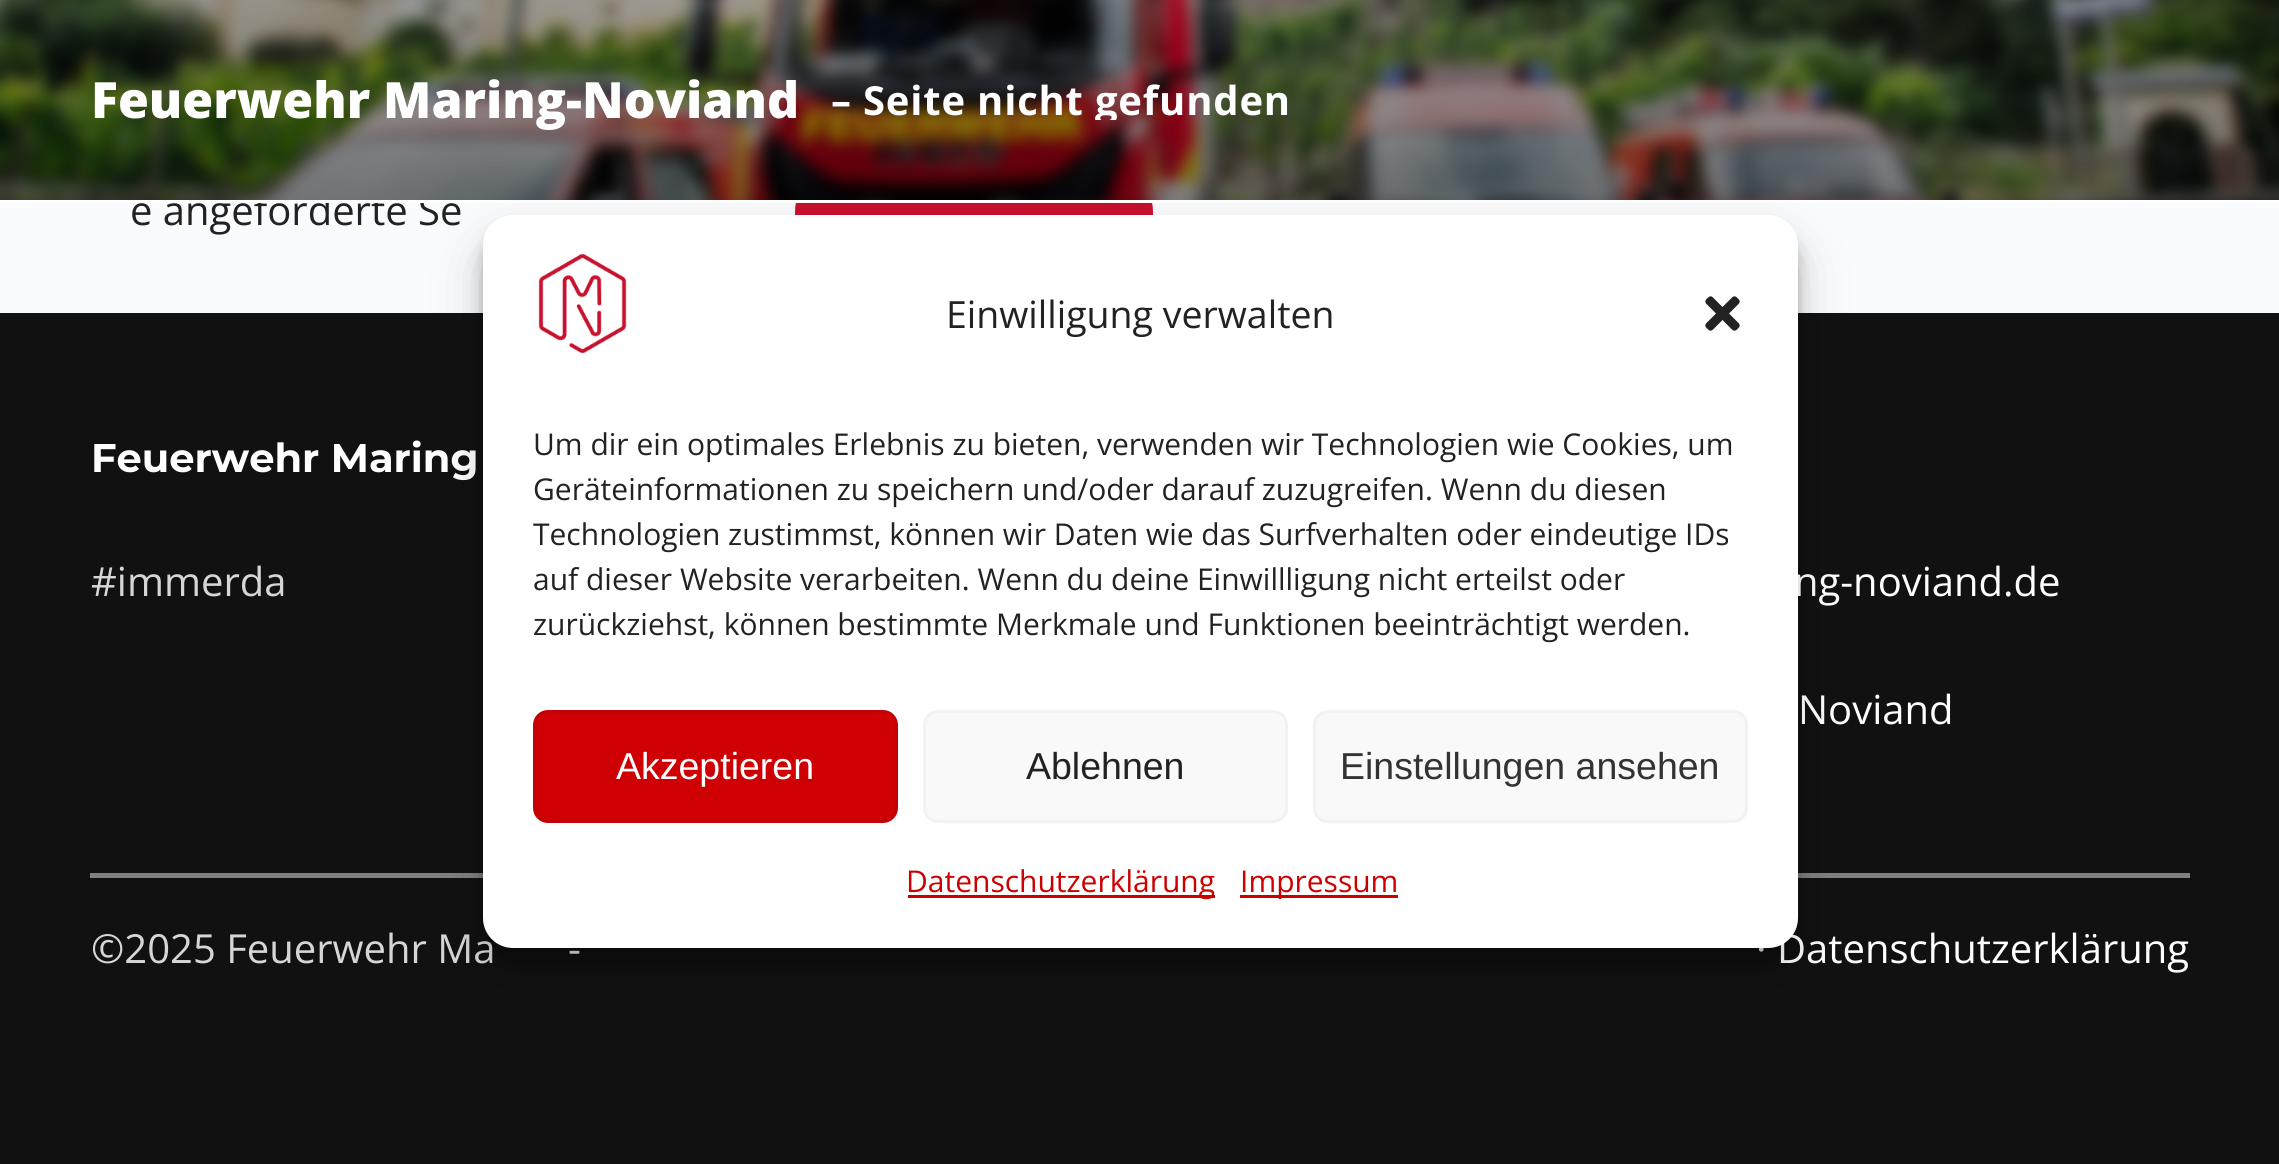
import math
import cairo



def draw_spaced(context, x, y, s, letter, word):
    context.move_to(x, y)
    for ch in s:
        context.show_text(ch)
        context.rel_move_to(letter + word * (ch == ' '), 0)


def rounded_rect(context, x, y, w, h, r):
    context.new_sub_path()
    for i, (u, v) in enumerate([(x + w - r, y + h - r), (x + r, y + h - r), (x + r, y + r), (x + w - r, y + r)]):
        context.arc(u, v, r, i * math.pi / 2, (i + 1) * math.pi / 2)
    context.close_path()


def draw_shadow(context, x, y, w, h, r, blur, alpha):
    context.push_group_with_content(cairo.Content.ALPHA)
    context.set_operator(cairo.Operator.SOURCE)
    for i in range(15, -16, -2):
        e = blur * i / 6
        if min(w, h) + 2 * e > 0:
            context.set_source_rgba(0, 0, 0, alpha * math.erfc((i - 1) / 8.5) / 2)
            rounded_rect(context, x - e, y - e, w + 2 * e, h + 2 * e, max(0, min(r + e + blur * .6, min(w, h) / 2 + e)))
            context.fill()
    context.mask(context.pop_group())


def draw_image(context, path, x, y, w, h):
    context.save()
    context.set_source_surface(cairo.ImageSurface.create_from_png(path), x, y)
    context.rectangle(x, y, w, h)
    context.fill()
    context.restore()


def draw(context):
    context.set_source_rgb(250 / 255, 251 / 255, 252 / 255)
    context.paint()
    context.set_source_rgb(0, 0, 0)
    draw_shadow(context, 795, 155, 358, 120, 60, 2.5, 0.05)
    context.set_source_rgb(200 / 255, 16 / 255, 46 / 255)
    rounded_rect(context, 795, 153, 358, 120, 60)
    context.fill()
    context.set_source_rgb(17 / 255, 17 / 255, 17 / 255)
    context.rectangle(0, 313, 2279, 851)
    context.fill()
    context.set_source_rgb(128 / 255, 128 / 255, 128 / 255)
    context.rectangle(90, 873, 2100, 5)
    context.fill()
    context.set_source_rgb(0, 0, 0)
    draw_shadow(context, 483, 230, 1315, 733, 30, 7.5, 0.23)
    context.select_font_face("Open Sans")
    context.set_font_size(40)
    context.set_source_rgb(34 / 255, 34 / 255, 34 / 255)
    context.move_to(130, 225)
    context.show_text("e angeforderte Se")
    draw_image(context, "images/1.png", 0, 0, 2279, 200)
    context.save()
    context.rectangle(820, 80, 470, 40)
    context.clip()
    context.select_font_face("Open Sans", cairo.FontSlant.NORMAL, cairo.FontWeight.BOLD)
    context.set_source_rgb(1, 1, 1)
    draw_spaced(context, 863, 115, "Seite nicht gefunden", 0.8, 0)
    context.restore()
    context.select_font_face("Open Sans", cairo.FontSlant.NORMAL, cairo.FontWeight.BOLD)
    context.set_source_rgb(1, 1, 1)
    draw_spaced(context, 831, 115, "–", 0.8, 0)
    context.select_font_face("Open Sans ExtraBold")
    context.set_font_size(50)
    context.move_to(91, 118)
    context.show_text("Feuerwehr Maring-Noviand")
    context.rectangle(0, 200, 2279, 3)
    context.fill()
    context.select_font_face("Montserrat", cairo.FontSlant.NORMAL, cairo.FontWeight.BOLD)
    context.set_font_size(40)
    context.move_to(91, 472)
    context.show_text("Feuerwehr Maring")
    context.select_font_face("Open Sans")
    context.set_source_rgb(214 / 255, 214 / 255, 214 / 255)
    context.move_to(91, 596)
    context.show_text("#immerda")
    context.set_source_rgb(1, 1, 1)
    context.move_to(1794, 596)
    context.show_text("ng-noviand.de")
    context.move_to(1798, 724)
    context.show_text("Noviand")
    context.set_source_rgb(214 / 255, 214 / 255, 214 / 255)
    context.move_to(91, 963)
    context.show_text("©2025 Feuerwehr Ma")
    context.move_to(568, 963)
    context.show_text("-")
    context.move_to(1756, 963)
    context.show_text("·")
    context.set_source_rgb(1, 1, 1)
    context.move_to(1777, 963)
    context.show_text("Datenschutzerklärung")
    context.set_source_rgb(0, 0, 0)
    draw_shadow(context, 483, 240, 1315, 733, 30, 25, 0.19)
    context.set_source_rgb(1, 1, 1)
    rounded_rect(context, 483, 215, 1315, 733, 30)
    context.fill()
    draw_image(context, "images/2.png", 538, 253, 89, 101)
    context.set_font_size(37.5)
    context.set_source_rgb(34 / 255, 34 / 255, 34 / 255)
    context.move_to(946, 328)
    context.show_text("Einwilligung verwalten")
    draw_image(context, "images/3.png", 1705, 296, 35, 35)
    context.set_font_size(30)
    context.move_to(533, 455)
    context.show_text("Um dir ein optimales Erlebnis zu bieten, verwenden wir Technologien wie Cookies, um")
    context.move_to(533, 500)
    context.show_text("Geräteinformationen zu speichern und/oder darauf zuzugreifen. Wenn du diesen")
    context.save()
    context.rectangle(533, 423, 1215, 237)
    context.clip()
    context.move_to(533, 545)
    context.show_text("Technologien zustimmst, können wir Daten wie das Surfverhalten oder eindeutige IDs")
    context.restore()
    context.move_to(533, 590)
    context.show_text("auf dieser Website verarbeiten. Wenn du deine Einwillligung nicht erteilst oder")
    context.move_to(533, 635)
    context.show_text("zurückziehst, können bestimmte Merkmale und Funktionen beeinträchtigt werden.")
    context.set_source_rgb(206 / 255, 0, 3 / 255)
    rounded_rect(context, 534.5, 711.5, 362, 110, 13.5)
    context.fill_preserve()
    context.set_source_rgb(192 / 255, 2 / 255, 6 / 255)
    context.set_line_width(3)
    context.stroke()
    context.select_font_face("Liberation Sans")
    context.set_font_size(37.5)
    context.set_source_rgb(1, 1, 1)
    context.move_to(616, 779)
    context.show_text("Akzeptieren")
    context.set_source_rgb(249 / 255, 249 / 255, 249 / 255)
    rounded_rect(context, 924.5, 711.5, 362, 110, 13.5)
    context.fill_preserve()
    context.set_source_rgb(242 / 255, 242 / 255, 242 / 255)
    context.stroke()
    context.set_source_rgb(34 / 255, 34 / 255, 34 / 255)
    context.move_to(1026, 779)
    context.show_text("Ablehnen")
    context.set_source_rgb(249 / 255, 249 / 255, 249 / 255)
    rounded_rect(context, 1314.5, 711.5, 432, 110, 13.5)
    context.fill_preserve()
    context.set_source_rgb(242 / 255, 242 / 255, 242 / 255)
    context.stroke()
    context.set_source_rgb(51 / 255, 51 / 255, 51 / 255)
    context.move_to(1340, 779)
    context.show_text("Einstellungen ansehen")
    context.set_source_rgb(204 / 255, 0, 0)
    context.rectangle(908, 895, 307, 3)
    context.fill()
    context.select_font_face("Open Sans")
    context.set_font_size(30)
    context.move_to(906, 892)
    context.show_text("Datenschutzerklärung")
    context.rectangle(1240, 895, 158, 3)
    context.fill()
    context.move_to(1240, 892)
    context.show_text("Impressum")


surface = cairo.ImageSurface(cairo.Format.RGB24, 2279, 1164)
context = cairo.Context(surface)
options = cairo.FontOptions()
options.set_hint_metrics(cairo.HintMetrics.OFF)
options.set_hint_style(cairo.HintStyle.NONE)
context.set_font_options(options)
context.set_miter_limit(4)
draw(context)
surface.write_to_png("out.png")
